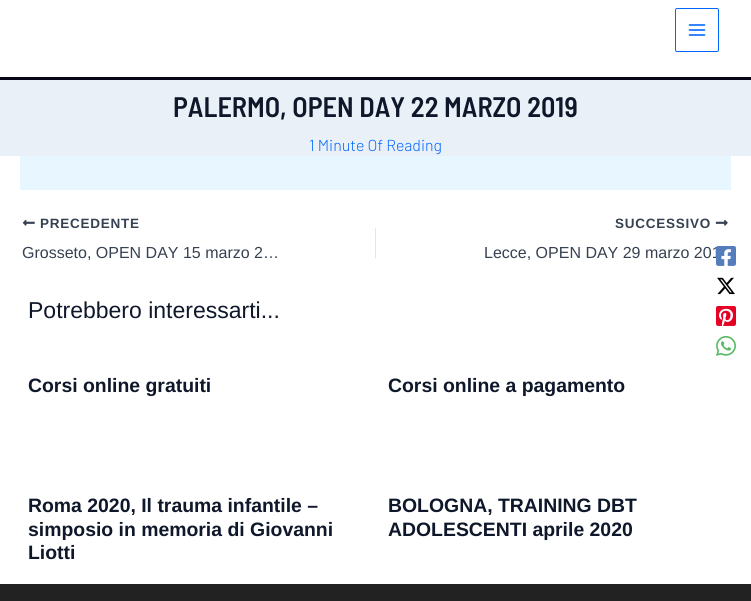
import math
import cairo



def draw_spaced(context, x, y, s, letter, word):
    context.move_to(x, y)
    for ch in s:
        context.show_text(ch)
        context.rel_move_to(letter + word * (ch == ' '), 0)


def rounded_rect(context, x, y, w, h, r):
    context.new_sub_path()
    for i, (u, v) in enumerate([(x + w - r, y + h - r), (x + r, y + h - r), (x + r, y + r), (x + w - r, y + r)]):
        context.arc(u, v, r, i * math.pi / 2, (i + 1) * math.pi / 2)
    context.close_path()


def draw_image(context, path, x, y, w, h):
    context.save()
    context.set_source_surface(cairo.ImageSurface.create_from_png(path), x, y)
    context.rectangle(x, y, w, h)
    context.fill()
    context.restore()


def draw(context):
    context.set_source_rgb(1, 1, 1)
    context.paint()
    context.set_source_rgb(7 / 255, 6 / 255, 20 / 255)
    context.rectangle(0, 77, 751, 3)
    context.fill()
    rounded_rect(context, 675.5, 8.5, 43, 43, 1.5)
    context.set_source_rgb(0, 103 / 255, 1)
    context.set_line_width(1)
    context.stroke()
    draw_image(context, "images/1.png", 688, 24, 18, 12)
    context.set_source_rgb(233 / 255, 240 / 255, 247 / 255)
    context.rectangle(0, 80, 751, 76)
    context.fill()
    context.set_source_rgb(231 / 255, 246 / 255, 1)
    context.rectangle(20, 156, 711, 34)
    context.fill()
    draw_image(context, "images/3.png", 717, 277, 18, 18)
    draw_image(context, "images/4.png", 716, 306, 20, 20)
    draw_image(context, "images/5.png", 716, 336, 20, 20)
    draw_image(context, "images/6.png", 22, 219, 13, 7)
    context.set_source_rgb(225 / 255, 232 / 255, 237 / 255)
    context.rectangle(375, 228, 1, 30)
    context.fill()
    draw_image(context, "images/7.png", 715, 219, 13, 7)
    context.set_source_rgb(34 / 255, 34 / 255, 34 / 255)
    context.rectangle(0, 584, 751, 17)
    context.fill()
    context.select_font_face("Barlow Semi Condensed SemiBold")
    context.set_font_size(28.25)
    context.set_source_rgb(15 / 255, 23 / 255, 42 / 255)
    context.move_to(173, 117)
    context.show_text("PALERMO, OPEN DAY 22 MARZO 2019")
    context.select_font_face("Barlow Light")
    context.set_font_size(15.9)
    context.set_source_rgb(0, 103 / 255, 1)
    context.move_to(309, 151)
    context.show_text("1 Minute Of Reading")
    context.select_font_face("Liberation Sans", cairo.FontSlant.NORMAL, cairo.FontWeight.BOLD)
    context.set_font_size(13.5)
    context.set_source_rgb(54 / 255, 65 / 255, 81 / 255)
    draw_spaced(context, 40, 228, "PRECEDENTE", 0.75, 0)
    context.select_font_face("Liberation Sans")
    context.set_font_size(16)
    context.move_to(22, 258)
    context.show_text("Grosseto, OPEN DAY 15 marzo 2…")
    context.select_font_face("Liberation Sans", cairo.FontSlant.NORMAL, cairo.FontWeight.BOLD)
    context.set_font_size(13.5)
    draw_spaced(context, 615, 228, "SUCCESSIVO", 0.75, 0)
    context.select_font_face("Liberation Sans")
    context.set_font_size(16)
    context.move_to(484, 258)
    context.show_text("Lecce, OPEN DAY 29 marzo 201")
    draw_image(context, "images/2.png", 716, 246, 20, 20)
    context.set_font_size(23)
    context.set_source_rgb(15 / 255, 23 / 255, 42 / 255)
    context.move_to(28, 318)
    context.show_text("Potrebbero interessarti...")
    context.select_font_face("Liberation Sans", cairo.FontSlant.NORMAL, cairo.FontWeight.BOLD)
    context.set_font_size(19.4)
    context.move_to(28, 392)
    context.show_text("Corsi online gratuiti")
    context.move_to(388, 392)
    context.show_text("Corsi online a pagamento")
    context.move_to(28, 512)
    context.show_text("Roma 2020, Il trauma infantile –")
    context.move_to(28, 536)
    context.show_text("simposio in memoria di Giovanni")
    context.move_to(28, 559)
    context.show_text("Liotti")
    context.move_to(388, 512)
    context.show_text("BOLOGNA, TRAINING DBT")
    context.move_to(388, 536)
    context.show_text("ADOLESCENTI aprile 2020")


surface = cairo.ImageSurface(cairo.Format.RGB24, 751, 601)
context = cairo.Context(surface)
options = cairo.FontOptions()
options.set_hint_metrics(cairo.HintMetrics.OFF)
options.set_hint_style(cairo.HintStyle.NONE)
context.set_font_options(options)
context.set_miter_limit(4)
draw(context)
surface.write_to_png("out.png")
